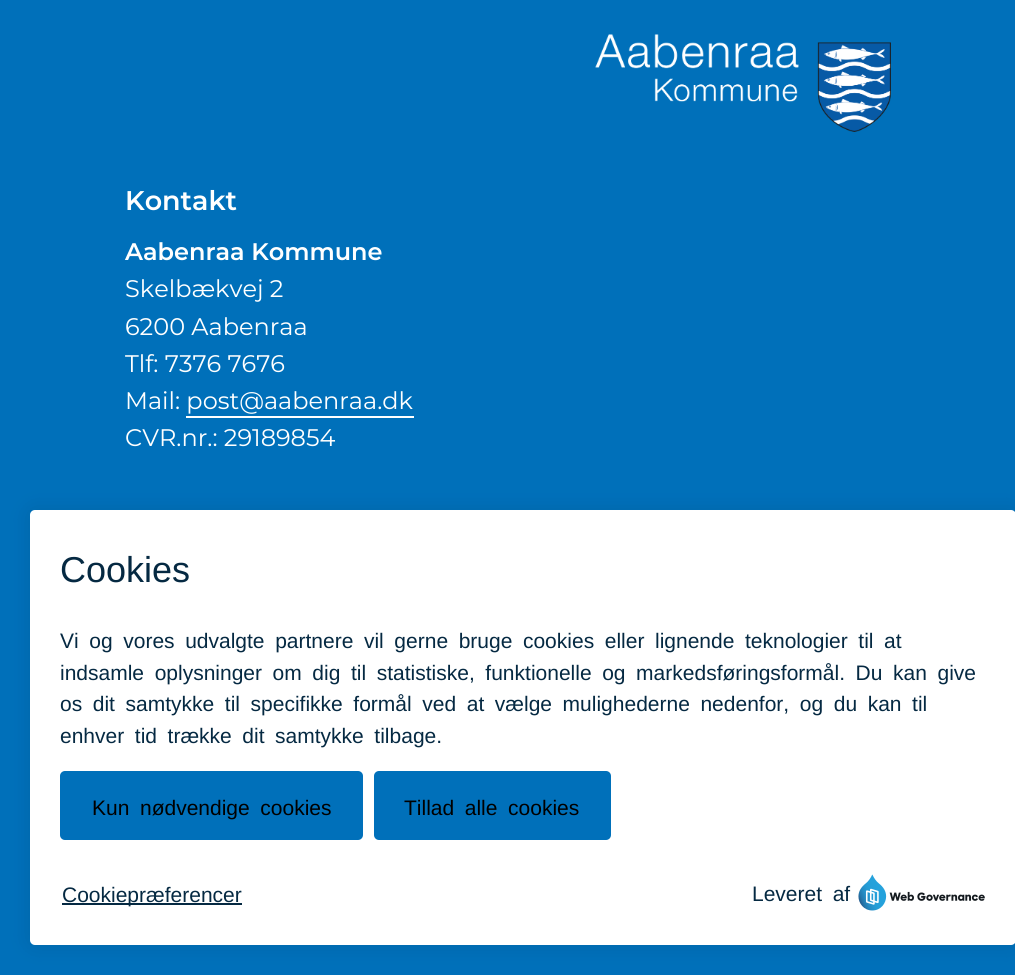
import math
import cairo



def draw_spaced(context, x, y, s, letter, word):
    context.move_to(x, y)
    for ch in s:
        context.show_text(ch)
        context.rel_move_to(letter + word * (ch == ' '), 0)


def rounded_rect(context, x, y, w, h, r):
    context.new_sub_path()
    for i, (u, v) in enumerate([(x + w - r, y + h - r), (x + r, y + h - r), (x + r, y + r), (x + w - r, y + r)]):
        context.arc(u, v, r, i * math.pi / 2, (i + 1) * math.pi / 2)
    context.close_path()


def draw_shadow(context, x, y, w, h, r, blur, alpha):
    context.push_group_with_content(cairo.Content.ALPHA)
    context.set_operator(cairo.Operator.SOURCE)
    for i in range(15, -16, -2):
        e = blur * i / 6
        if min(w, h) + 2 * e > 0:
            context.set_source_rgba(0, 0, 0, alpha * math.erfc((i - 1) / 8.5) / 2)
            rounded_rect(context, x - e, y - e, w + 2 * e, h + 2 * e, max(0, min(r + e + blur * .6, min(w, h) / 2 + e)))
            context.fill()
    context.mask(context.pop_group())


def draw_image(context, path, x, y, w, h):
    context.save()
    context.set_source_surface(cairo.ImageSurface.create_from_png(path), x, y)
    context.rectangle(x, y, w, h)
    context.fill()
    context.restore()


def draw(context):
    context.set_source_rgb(0, 112 / 255, 186 / 255)
    context.paint()
    draw_image(context, "images/1.png", 595, 34, 296, 98)
    context.set_source_rgb(1, 1, 1)
    context.rectangle(186, 416, 228, 2)
    context.fill()
    context.set_source_rgb(0, 0, 0)
    draw_shadow(context, 30, 510, 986, 435, 5, 11, 0.1)
    context.set_source_rgb(1, 1, 1)
    rounded_rect(context, 30, 510, 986, 435, 5)
    context.fill()
    context.set_source_rgb(0, 112 / 255, 186 / 255)
    rounded_rect(context, 60, 771, 303, 69, 5)
    context.fill()
    rounded_rect(context, 374, 771, 237, 69, 5)
    context.fill()
    context.set_source_rgb(5 / 255, 41 / 255, 66 / 255)
    context.rectangle(62, 903, 180, 2)
    context.fill()
    draw_image(context, "images/2.png", 858, 874, 127, 37)
    context.select_font_face("Montserrat SemiBold")
    context.set_font_size(27)
    context.set_source_rgb(1, 1, 1)
    context.move_to(125, 210)
    context.show_text("Kontakt")
    context.set_font_size(24)
    context.move_to(125, 260)
    context.show_text("Aabenraa Kommune")
    context.select_font_face("Montserrat")
    context.move_to(125, 297)
    context.show_text("Skelbækvej 2")
    context.move_to(125, 335)
    context.show_text("6200 Aabenraa")
    context.move_to(125, 372)
    context.show_text("Tlf: 7376 7676")
    context.move_to(125, 409)
    context.show_text("Mail: post@aabenraa.dk")
    context.move_to(125, 446)
    context.show_text("CVR.nr.: 29189854")
    context.select_font_face("Liberation Sans")
    context.set_font_size(36)
    context.set_source_rgb(5 / 255, 41 / 255, 66 / 255)
    context.move_to(60, 582)
    context.show_text("Cookies")
    context.set_font_size(21)
    draw_spaced(context, 60, 648, "Vi og vores udvalgte partnere vil gerne bruge cookies eller lignende teknologier til at", 0, 4.75)
    draw_spaced(context, 60, 680, "indsamle oplysninger om dig til statistiske, funktionelle og markedsføringsformål. Du kan give", 0, 4.75)
    draw_spaced(context, 60, 711, "os dit samtykke til specifikke formål ved at vælge mulighederne nedenfor, og du kan til", 0, 4.75)
    draw_spaced(context, 60, 743, "enhver tid trække dit samtykke tilbage.", 0, 4.75)
    context.set_source_rgb(0, 0, 0)
    draw_spaced(context, 92, 815, "Kun nødvendige cookies", 0, 4.75)
    draw_spaced(context, 404, 815, "Tillad alle cookies", 0, 4.75)
    context.set_source_rgb(5 / 255, 41 / 255, 66 / 255)
    context.move_to(62, 902)
    context.show_text("Cookiepræferencer")
    draw_spaced(context, 752, 901, "Leveret af", 0, 4.75)


surface = cairo.ImageSurface(cairo.Format.RGB24, 1015, 975)
context = cairo.Context(surface)
options = cairo.FontOptions()
options.set_hint_metrics(cairo.HintMetrics.OFF)
options.set_hint_style(cairo.HintStyle.NONE)
context.set_font_options(options)
context.set_miter_limit(4)
draw(context)
surface.write_to_png("out.png")
